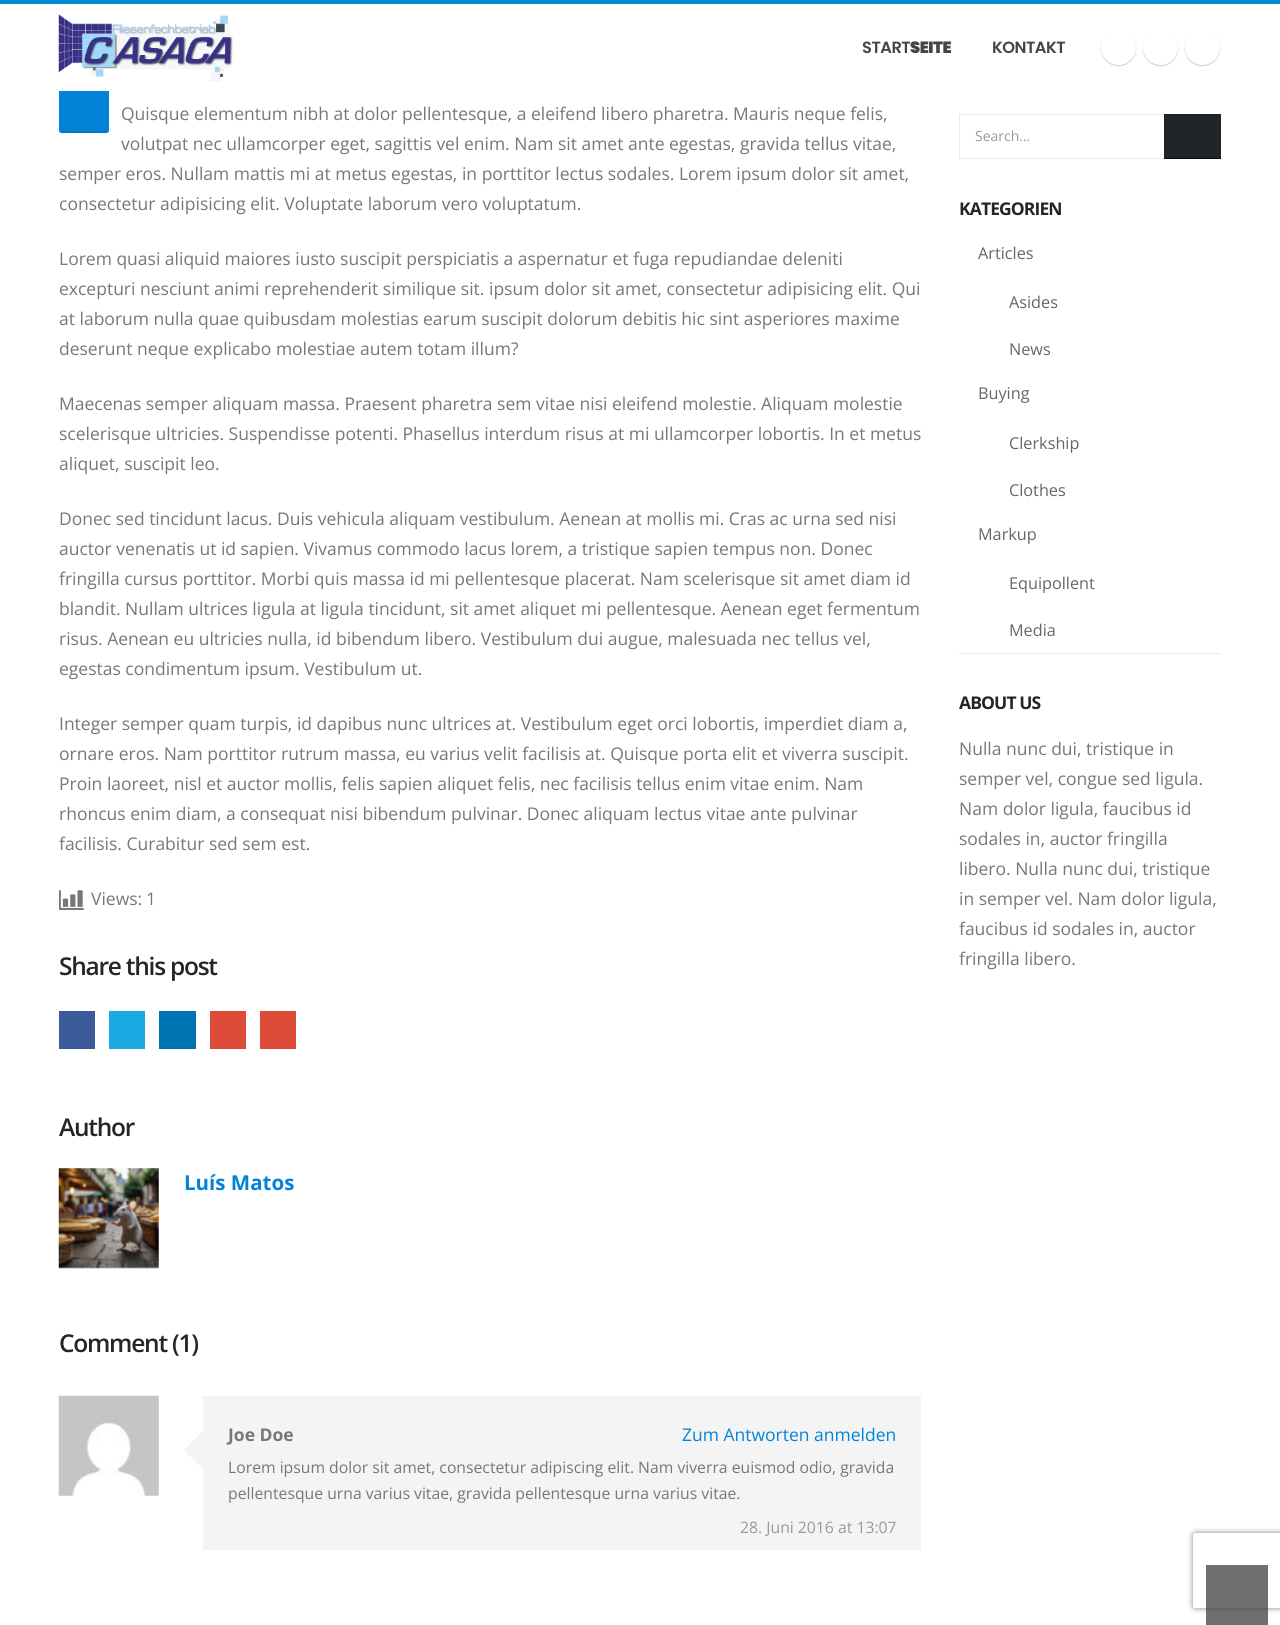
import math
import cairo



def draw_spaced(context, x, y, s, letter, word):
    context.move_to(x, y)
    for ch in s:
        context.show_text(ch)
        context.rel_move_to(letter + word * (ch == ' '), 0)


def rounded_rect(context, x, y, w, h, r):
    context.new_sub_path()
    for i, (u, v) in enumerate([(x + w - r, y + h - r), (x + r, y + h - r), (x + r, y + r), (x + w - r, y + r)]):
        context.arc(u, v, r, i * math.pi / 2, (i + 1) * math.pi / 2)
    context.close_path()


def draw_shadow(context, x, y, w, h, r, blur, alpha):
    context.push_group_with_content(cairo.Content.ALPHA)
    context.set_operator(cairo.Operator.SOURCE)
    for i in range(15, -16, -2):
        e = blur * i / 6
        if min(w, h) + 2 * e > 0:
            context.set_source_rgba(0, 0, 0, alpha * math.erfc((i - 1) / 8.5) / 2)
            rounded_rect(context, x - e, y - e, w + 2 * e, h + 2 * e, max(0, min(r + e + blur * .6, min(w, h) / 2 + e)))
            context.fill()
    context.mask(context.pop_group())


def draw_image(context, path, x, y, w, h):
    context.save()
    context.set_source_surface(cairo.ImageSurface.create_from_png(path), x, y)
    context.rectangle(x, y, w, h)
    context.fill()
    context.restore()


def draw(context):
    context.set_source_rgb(1, 1, 1)
    context.paint()
    context.set_source_rgb(2 / 255, 131 / 255, 216 / 255)
    rounded_rect(context, 59, 81, 50, 52, 2.5)
    context.fill()
    context.set_source_rgb(1, 1, 1)
    context.rectangle(59, 81, 50, 10)
    context.fill()
    context.set_source_rgb(0, 136 / 255, 204 / 255)
    context.rectangle(0, 0, 1280, 4)
    context.fill()
    draw_image(context, "images/1.png", 58, 14, 176, 67)
    context.set_source_rgb(0, 0, 0)
    draw_shadow(context, 1101, 31, 35, 35, 17.5, 0.5, 0.2)
    context.set_source_rgb(1, 1, 1)
    context.arc(1118.5, 47.5, 17.5, 0, 2 * math.pi)
    context.fill()
    context.set_source_rgb(0, 0, 0)
    draw_shadow(context, 1143, 31, 35, 35, 17.5, 0.5, 0.2)
    context.set_source_rgb(1, 1, 1)
    context.arc(1160.5, 47.5, 17.5, 0, 2 * math.pi)
    context.fill()
    context.set_source_rgb(0, 0, 0)
    draw_shadow(context, 1185, 31, 35, 35, 17.5, 0.5, 0.2)
    context.set_source_rgb(1, 1, 1)
    context.arc(1202.5, 47.5, 17.5, 0, 2 * math.pi)
    context.fill()
    context.set_source_rgba(0, 0, 0, 0.07)
    context.new_path()
    context.move_to(59, 129)
    context.curve_to(59, 135, 64, 133, 69, 133)
    context.line_to(99, 133)
    context.curve_to(104, 133, 109, 135, 109, 129)
    context.curve_to(109, 130, 108, 131, 106, 131)
    context.line_to(61, 131)
    context.curve_to(60, 131, 59, 130, 59, 129)
    context.close_path()
    context.fill()
    draw_image(context, "images/2.png", 59, 890, 25, 20)
    context.set_source_rgb(59 / 255, 90 / 255, 154 / 255)
    context.rectangle(59, 1011, 36, 38)
    context.fill()
    context.set_source_rgb(26 / 255, 169 / 255, 225 / 255)
    context.rectangle(109, 1011, 36, 38)
    context.fill()
    context.set_source_rgb(0, 115 / 255, 178 / 255)
    context.rectangle(159, 1011, 37, 38)
    context.fill()
    context.set_source_rgb(221 / 255, 75 / 255, 57 / 255)
    context.rectangle(210, 1011, 36, 38)
    context.fill()
    context.rectangle(260, 1011, 36, 38)
    context.fill()
    draw_image(context, "images/3.png", 58, 1168, 101, 101)
    draw_image(context, "images/4.png", 58, 1395, 101, 101)
    context.set_source_rgb(244 / 255, 244 / 255, 244 / 255)
    context.rectangle(203, 1396, 718, 154)
    context.fill()
    context.new_path()
    context.move_to(202.5, 1431)
    context.line_to(202.5, 1469)
    context.line_to(184, 1450)
    context.close_path()
    context.fill()
    context.rectangle(959.5, 114.5, 205, 44)
    context.set_source_rgb(235 / 255, 235 / 255, 235 / 255)
    context.set_line_width(1)
    context.stroke()
    context.set_source_rgb(33 / 255, 37 / 255, 41 / 255)
    context.rectangle(1165, 114, 56, 44)
    context.fill()
    context.set_source_rgb(11 / 255, 12 / 255, 13 / 255)
    context.rectangle(1164, 158, 57, 1)
    context.fill()
    context.set_source_rgb(33 / 255, 37 / 255, 41 / 255)
    context.rectangle(1164, 114, 1, 45)
    context.fill()
    context.set_source_rgb(235 / 255, 235 / 255, 235 / 255)
    context.rectangle(959, 653, 262, 1)
    context.fill()
    context.save()
    context.set_fill_rule(cairo.FillRule.EVEN_ODD)
    context.new_path()
    context.move_to(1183, 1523)
    context.line_to(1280, 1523)
    context.line_to(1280, 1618)
    context.line_to(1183, 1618)
    context.close_path()
    context.move_to(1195.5, 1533)
    context.line_to(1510.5, 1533)
    context.curve_to(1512, 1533, 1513, 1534, 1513, 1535.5)
    context.line_to(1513, 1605.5)
    context.curve_to(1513, 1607, 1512, 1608, 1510.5, 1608)
    context.line_to(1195.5, 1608)
    context.curve_to(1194, 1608, 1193, 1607, 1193, 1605.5)
    context.line_to(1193, 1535.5)
    context.curve_to(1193, 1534, 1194, 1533, 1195.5, 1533)
    context.close_path()
    context.clip()
    context.set_source_rgb(128 / 255, 128 / 255, 128 / 255)
    draw_shadow(context, 1193, 1533, 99, 75, 2.5, 3, 1)
    context.restore()
    context.set_source_rgba(64 / 255, 64 / 255, 64 / 255, 0.75)
    context.rectangle(1206, 1565, 62, 60)
    context.fill()
    context.select_font_face("Poppins SemiBold")
    context.set_font_size(16.25)
    context.set_source_rgb(68 / 255, 68 / 255, 68 / 255)
    draw_spaced(context, 862, 53, "START", -0.5, 0)
    context.select_font_face("Poppins Black")
    draw_spaced(context, 910, 53, "SEITE", -0.5, 0)
    context.select_font_face("Poppins SemiBold")
    draw_spaced(context, 992, 53, "KONTAKT", -0.5, 0)
    context.select_font_face("Open Sans")
    context.set_font_size(17.5)
    context.set_source_rgb(119 / 255, 119 / 255, 119 / 255)
    context.move_to(121, 120)
    context.show_text("Quisque elementum nibh at dolor pellentesque, a eleifend libero pharetra. Mauris neque felis,")
    context.move_to(121, 150)
    context.show_text("volutpat nec ullamcorper eget, sagittis vel enim. Nam sit amet ante egestas, gravida tellus vitae,")
    context.move_to(59, 180)
    context.show_text("semper eros. Nullam mattis mi at metus egestas, in porttitor lectus sodales. Lorem ipsum dolor sit amet,")
    context.move_to(59, 210)
    context.show_text("consectetur adipisicing elit. Voluptate laborum vero voluptatum.")
    context.move_to(59, 265)
    context.show_text("Lorem quasi aliquid maiores iusto suscipit perspiciatis a aspernatur et fuga repudiandae deleniti")
    context.move_to(59, 295)
    context.show_text("excepturi nesciunt animi reprehenderit similique sit. ipsum dolor sit amet, consectetur adipisicing elit. Qui")
    context.move_to(59, 325)
    context.show_text("at laborum nulla quae quibusdam molestias earum suscipit dolorum debitis hic sint asperiores maxime")
    context.move_to(59, 355)
    context.show_text("deserunt neque explicabo molestiae autem totam illum?")
    context.move_to(59, 410)
    context.show_text("Maecenas semper aliquam massa. Praesent pharetra sem vitae nisi eleifend molestie. Aliquam molestie")
    context.move_to(59, 440)
    context.show_text("scelerisque ultricies. Suspendisse potenti. Phasellus interdum risus at mi ullamcorper lobortis. In et metus")
    context.move_to(59, 470)
    context.show_text("aliquet, suscipit leo.")
    context.move_to(59, 525)
    context.show_text("Donec sed tincidunt lacus. Duis vehicula aliquam vestibulum. Aenean at mollis mi. Cras ac urna sed nisi")
    context.move_to(59, 555)
    context.show_text("auctor venenatis ut id sapien. Vivamus commodo lacus lorem, a tristique sapien tempus non. Donec")
    context.move_to(59, 585)
    context.show_text("fringilla cursus porttitor. Morbi quis massa id mi pellentesque placerat. Nam scelerisque sit amet diam id")
    context.move_to(59, 615)
    context.show_text("blandit. Nullam ultrices ligula at ligula tincidunt, sit amet aliquet mi pellentesque. Aenean eget fermentum")
    context.move_to(59, 645)
    context.show_text("risus. Aenean eu ultricies nulla, id bibendum libero. Vestibulum dui augue, malesuada nec tellus vel,")
    context.move_to(59, 675)
    context.show_text("egestas condimentum ipsum. Vestibulum ut.")
    context.move_to(59, 730)
    context.show_text("Integer semper quam turpis, id dapibus nunc ultrices at. Vestibulum eget orci lobortis, imperdiet diam a,")
    context.move_to(59, 760)
    context.show_text("ornare eros. Nam porttitor rutrum massa, eu varius velit facilisis at. Quisque porta elit et viverra suscipit.")
    context.move_to(59, 790)
    context.show_text("Proin laoreet, nisl et auctor mollis, felis sapien aliquet felis, nec facilisis tellus enim vitae enim. Nam")
    context.move_to(59, 820)
    context.show_text("rhoncus enim diam, a consequat nisi bibendum pulvinar. Donec aliquam lectus vitae ante pulvinar")
    context.move_to(59, 850)
    context.show_text("facilisis. Curabitur sed sem est.")
    context.move_to(91, 905)
    context.show_text("Views:")
    context.move_to(146, 905)
    context.show_text("1")
    context.select_font_face("Open Sans SemiBold")
    context.set_font_size(24.5)
    context.set_source_rgb(34 / 255, 37 / 255, 41 / 255)
    draw_spaced(context, 59, 975, "Share this post", -1.25, 0)
    draw_spaced(context, 59, 1136, "Author", -1.25, 0)
    context.select_font_face("Open Sans", cairo.FontSlant.NORMAL, cairo.FontWeight.BOLD)
    context.set_font_size(20.5)
    context.set_source_rgb(2 / 255, 131 / 255, 216 / 255)
    context.move_to(184, 1190)
    context.show_text("Luís Matos")
    context.select_font_face("Open Sans SemiBold")
    context.set_font_size(24.5)
    context.set_source_rgb(34 / 255, 37 / 255, 41 / 255)
    draw_spaced(context, 59, 1352, "Comment (1)", -1.25, 0)
    context.select_font_face("Open Sans", cairo.FontSlant.NORMAL, cairo.FontWeight.BOLD)
    context.set_font_size(17.5)
    context.set_source_rgb(119 / 255, 119 / 255, 119 / 255)
    context.move_to(228, 1441)
    context.show_text("Joe Doe")
    context.select_font_face("Open Sans")
    context.set_source_rgb(2 / 255, 131 / 255, 216 / 255)
    context.move_to(682, 1441)
    context.show_text("Zum Antworten anmelden")
    context.set_font_size(15.75)
    context.set_source_rgb(119 / 255, 119 / 255, 119 / 255)
    context.move_to(228, 1473)
    context.show_text("Lorem ipsum dolor sit amet, consectetur adipiscing elit. Nam viverra euismod odio, gravida")
    context.move_to(228, 1499)
    context.show_text("pellentesque urna varius vitae, gravida pellentesque urna varius vitae.")
    context.set_source_rgb(153 / 255, 153 / 255, 153 / 255)
    context.move_to(740, 1533)
    context.show_text("28. Juni 2016 at 13:07")
    context.set_font_size(14)
    context.move_to(975, 141)
    context.show_text("Search…")
    context.select_font_face("Open Sans", cairo.FontSlant.NORMAL, cairo.FontWeight.BOLD)
    context.set_font_size(17.5)
    context.set_source_rgb(34 / 255, 37 / 255, 41 / 255)
    draw_spaced(context, 959, 215, "KATEGORIEN", -0.9, 0)
    context.select_font_face("Open Sans")
    context.set_font_size(16.25)
    context.set_source_rgb(102 / 255, 102 / 255, 102 / 255)
    context.move_to(978, 259)
    context.show_text("Articles")
    context.move_to(1009, 308)
    context.show_text("Asides")
    context.move_to(1009, 355)
    context.show_text("News")
    context.move_to(978, 399)
    context.show_text("Buying")
    context.move_to(1009, 449)
    context.show_text("Clerkship")
    context.move_to(1009, 496)
    context.show_text("Clothes")
    context.move_to(978, 540)
    context.show_text("Markup")
    context.move_to(1009, 589)
    context.show_text("Equipollent")
    context.move_to(1009, 636)
    context.show_text("Media")
    context.select_font_face("Open Sans", cairo.FontSlant.NORMAL, cairo.FontWeight.BOLD)
    context.set_font_size(17.5)
    context.set_source_rgb(34 / 255, 37 / 255, 41 / 255)
    draw_spaced(context, 959, 709, "ABOUT US", -0.9, 0)
    context.select_font_face("Open Sans")
    context.set_source_rgb(119 / 255, 119 / 255, 119 / 255)
    context.move_to(959, 755)
    context.show_text("Nulla nunc dui, tristique in")
    context.move_to(959, 785)
    context.show_text("semper vel, congue sed ligula.")
    context.move_to(959, 815)
    context.show_text("Nam dolor ligula, faucibus id")
    context.move_to(959, 845)
    context.show_text("sodales in, auctor fringilla")
    context.move_to(959, 875)
    context.show_text("libero. Nulla nunc dui, tristique")
    context.move_to(959, 905)
    context.show_text("in semper vel. Nam dolor ligula,")
    context.move_to(959, 935)
    context.show_text("faucibus id sodales in, auctor")
    context.move_to(959, 965)
    context.show_text("fringilla libero.")


surface = cairo.ImageSurface(cairo.Format.RGB24, 1280, 1625)
context = cairo.Context(surface)
options = cairo.FontOptions()
options.set_hint_metrics(cairo.HintMetrics.OFF)
options.set_hint_style(cairo.HintStyle.NONE)
context.set_font_options(options)
context.set_miter_limit(4)
draw(context)
surface.write_to_png("out.png")
